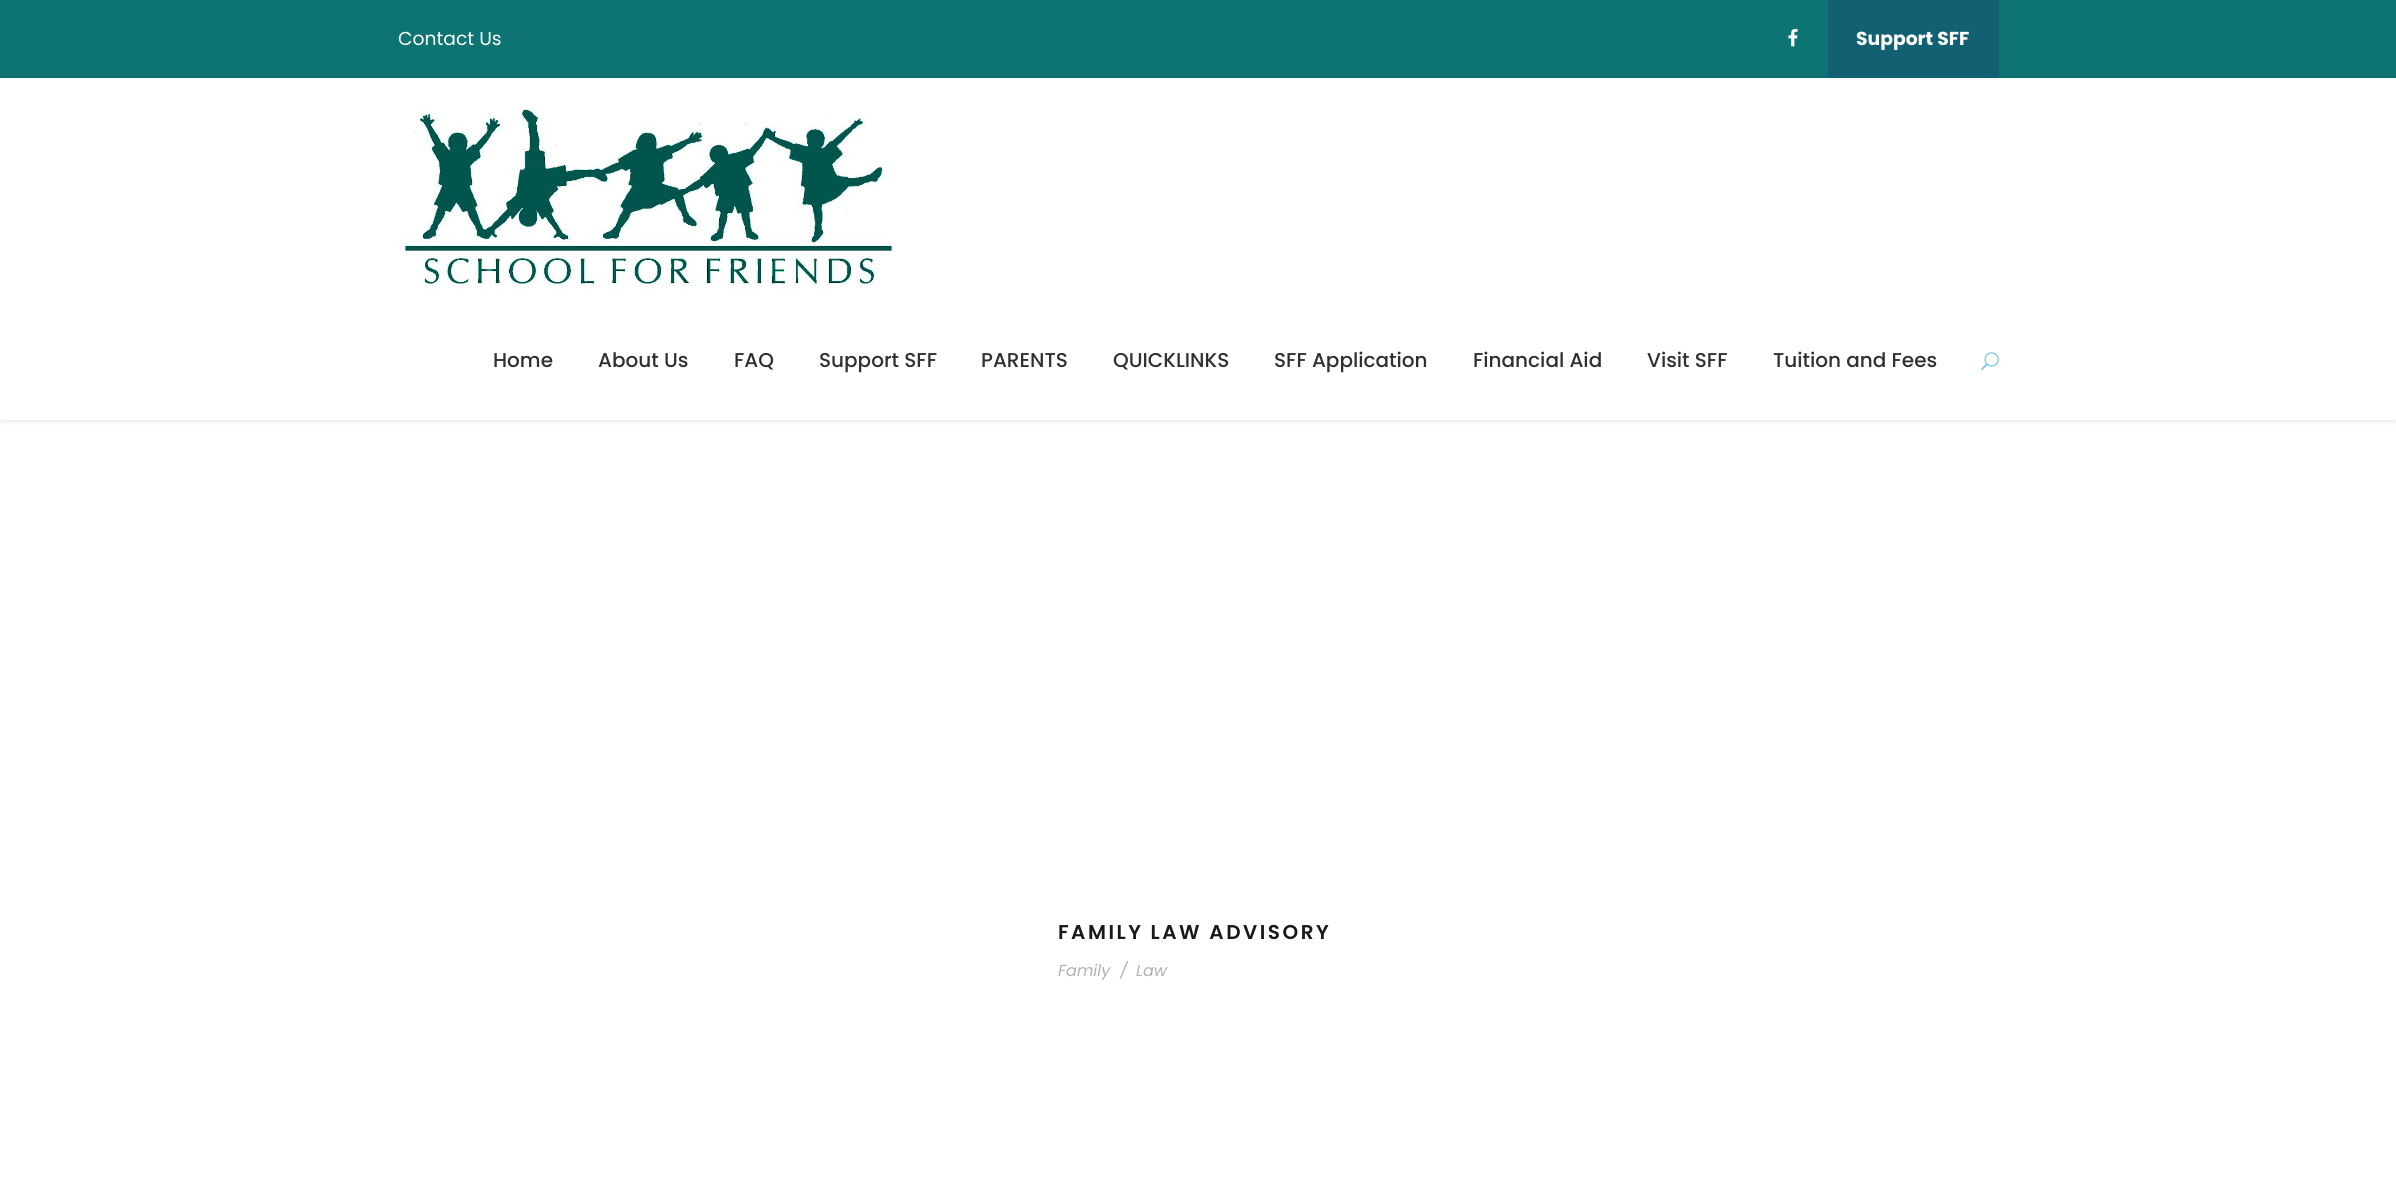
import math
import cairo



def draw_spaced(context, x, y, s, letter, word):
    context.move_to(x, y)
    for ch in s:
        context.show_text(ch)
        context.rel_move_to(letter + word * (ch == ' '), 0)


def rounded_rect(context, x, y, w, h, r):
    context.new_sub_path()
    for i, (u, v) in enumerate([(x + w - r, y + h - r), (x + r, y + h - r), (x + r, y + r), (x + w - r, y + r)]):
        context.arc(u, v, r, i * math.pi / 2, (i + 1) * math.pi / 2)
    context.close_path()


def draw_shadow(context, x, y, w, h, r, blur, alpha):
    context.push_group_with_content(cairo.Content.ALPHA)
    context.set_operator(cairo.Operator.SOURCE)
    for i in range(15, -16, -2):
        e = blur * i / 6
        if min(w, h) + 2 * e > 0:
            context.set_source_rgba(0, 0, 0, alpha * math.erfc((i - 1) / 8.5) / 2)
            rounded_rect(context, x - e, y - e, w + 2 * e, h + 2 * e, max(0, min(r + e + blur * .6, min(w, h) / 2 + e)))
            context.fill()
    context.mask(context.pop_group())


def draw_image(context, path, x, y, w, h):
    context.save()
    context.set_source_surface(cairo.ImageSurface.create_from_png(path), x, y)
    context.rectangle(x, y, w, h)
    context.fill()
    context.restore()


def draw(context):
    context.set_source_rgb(1, 1, 1)
    context.paint()
    context.set_source_rgb(14 / 255, 115 / 255, 115 / 255)
    context.rectangle(0, 0, 2396, 78)
    context.fill()
    draw_image(context, "images/1.png", 1788, 28, 10, 19)
    context.set_source_rgb(18 / 255, 97 / 255, 115 / 255)
    context.rectangle(1828, 0, 171, 78)
    context.fill()
    context.set_source_rgb(0, 0, 0)
    draw_shadow(context, 0, 79, 2396, 342, 0, 2.5, 0.1)
    context.set_source_rgb(1, 1, 1)
    context.rectangle(0, 78, 2396, 342)
    context.fill()
    draw_image(context, "images/2.png", 399, 108, 494, 182)
    draw_image(context, "images/3.png", 1981, 352, 18, 18)
    context.select_font_face("Poppins")
    context.set_font_size(18.75)
    context.move_to(398, 45)
    context.show_text("Contact Us")
    context.select_font_face("Poppins", cairo.FontSlant.NORMAL, cairo.FontWeight.BOLD)
    context.move_to(1856, 45)
    context.show_text("Support SFF")
    context.select_font_face("Poppins Medium")
    context.set_font_size(20)
    context.set_source_rgb(48 / 255, 48 / 255, 48 / 255)
    context.move_to(493, 367)
    context.show_text("Home")
    context.move_to(598, 367)
    context.show_text("About Us")
    context.move_to(734, 367)
    context.show_text("FAQ")
    context.move_to(819, 367)
    context.show_text("Support SFF")
    context.move_to(981, 367)
    context.show_text("PARENTS")
    context.move_to(1113, 367)
    context.show_text("QUICKLINKS")
    context.move_to(1274, 367)
    context.show_text("SFF Application")
    context.move_to(1473, 367)
    context.show_text("Financial Aid")
    context.move_to(1647, 367)
    context.show_text("Visit SFF")
    context.move_to(1773, 367)
    context.show_text("Tuition and Fees")
    context.select_font_face("Poppins SemiBold")
    context.set_source_rgb(25 / 255, 25 / 255, 25 / 255)
    draw_spaced(context, 1058, 939, "FAMILY LAW ADVISORY", 2.5, 0)
    context.select_font_face("Poppins", cairo.FontSlant.ITALIC)
    context.set_font_size(16)
    context.set_source_rgb(177 / 255, 177 / 255, 177 / 255)
    context.move_to(1058, 976)
    context.show_text("Family")
    context.move_to(1120, 976)
    context.show_text("/")
    context.move_to(1136, 976)
    context.show_text("Law")


surface = cairo.ImageSurface(cairo.Format.RGB24, 2396, 1183)
context = cairo.Context(surface)
options = cairo.FontOptions()
options.set_hint_metrics(cairo.HintMetrics.OFF)
options.set_hint_style(cairo.HintStyle.NONE)
context.set_font_options(options)
context.set_miter_limit(4)
draw(context)
surface.write_to_png("out.png")
